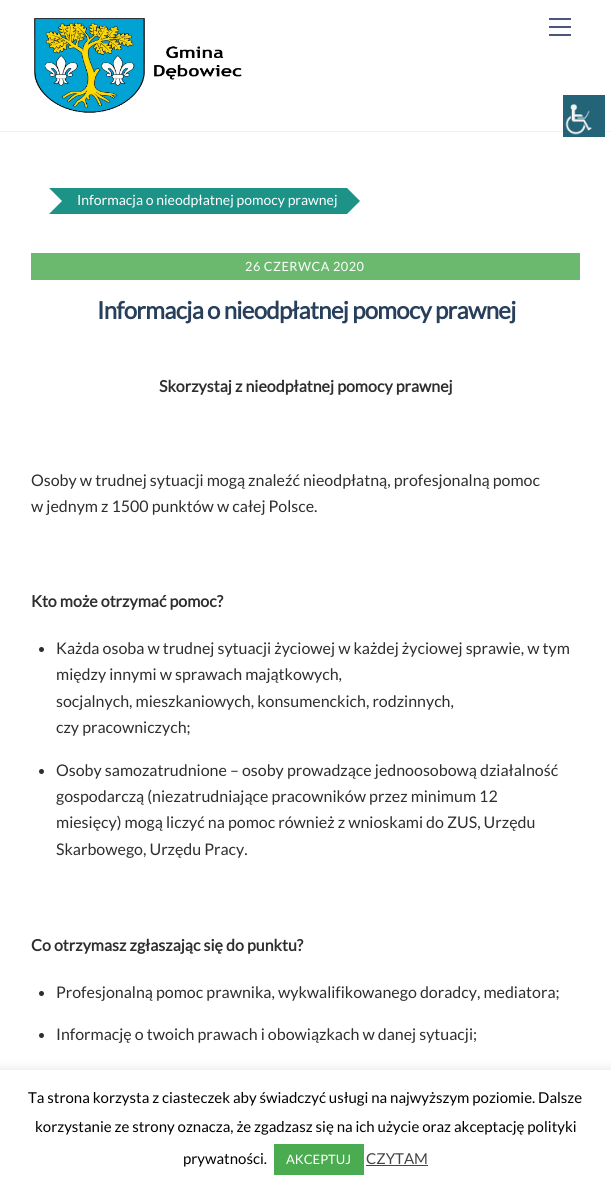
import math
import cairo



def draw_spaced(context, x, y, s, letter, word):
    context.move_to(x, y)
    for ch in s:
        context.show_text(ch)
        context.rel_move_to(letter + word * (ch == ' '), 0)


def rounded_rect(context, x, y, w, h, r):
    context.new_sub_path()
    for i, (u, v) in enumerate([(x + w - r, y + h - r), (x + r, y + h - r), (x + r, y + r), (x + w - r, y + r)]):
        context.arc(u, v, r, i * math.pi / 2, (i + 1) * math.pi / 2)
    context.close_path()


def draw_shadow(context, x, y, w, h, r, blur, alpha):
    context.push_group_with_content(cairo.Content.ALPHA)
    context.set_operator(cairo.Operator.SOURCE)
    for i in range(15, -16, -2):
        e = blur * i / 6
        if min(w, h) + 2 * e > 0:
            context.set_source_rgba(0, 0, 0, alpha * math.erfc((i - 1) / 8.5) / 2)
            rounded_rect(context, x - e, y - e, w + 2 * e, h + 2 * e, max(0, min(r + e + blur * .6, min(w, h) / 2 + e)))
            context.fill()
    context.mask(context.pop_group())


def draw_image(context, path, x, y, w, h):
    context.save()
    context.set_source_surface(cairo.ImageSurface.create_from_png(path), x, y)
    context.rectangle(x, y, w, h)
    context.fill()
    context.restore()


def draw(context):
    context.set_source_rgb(1, 1, 1)
    context.paint()
    context.set_source_rgb(242 / 255, 242 / 255, 242 / 255)
    context.rectangle(0, 131, 611, 1)
    context.fill()
    draw_image(context, "images/1.png", 563, 95, 42, 42)
    draw_image(context, "images/2.png", 34, 18, 208, 95)
    context.set_source_rgb(75 / 255, 86 / 255, 125 / 255)
    context.rectangle(549, 34, 22, 2)
    context.fill()
    context.rectangle(549, 18, 22, 2)
    context.fill()
    context.rectangle(549, 26, 22, 2)
    context.fill()
    context.set_source_rgb(29 / 255, 147 / 255, 136 / 255)
    context.rectangle(75, 188, 272, 26)
    context.fill()
    context.new_path()
    context.move_to(49, 188)
    context.line_to(75, 188)
    context.line_to(62, 201)
    context.close_path()
    context.fill()
    context.rectangle(62, 188, 13, 26)
    context.fill()
    context.new_path()
    context.move_to(75, 214)
    context.line_to(49, 214)
    context.line_to(62, 201)
    context.close_path()
    context.fill()
    context.new_path()
    context.move_to(347, 214)
    context.line_to(347, 188)
    context.line_to(360, 201)
    context.close_path()
    context.fill()
    context.set_source_rgb(106 / 255, 185 / 255, 110 / 255)
    context.rectangle(31, 253, 549, 27)
    context.fill()
    context.set_source_rgb(46 / 255, 46 / 255, 46 / 255)
    context.arc(41.5, 649.5, 2.5, 0, 2 * math.pi)
    context.fill()
    context.arc(41.5, 771.5, 2.5, 0, 2 * math.pi)
    context.fill()
    context.arc(41.5, 993.5, 2.5, 0, 2 * math.pi)
    context.fill()
    context.arc(41.5, 1035.5, 2.5, 0, 2 * math.pi)
    context.fill()
    context.set_source_rgb(172 / 255, 171 / 255, 171 / 255)
    draw_shadow(context, 0, 1069, 611, 117, 0, 5, 0.3)
    context.set_source_rgb(1, 1, 1)
    context.rectangle(0, 1070, 611, 117)
    context.fill()
    context.set_source_rgb(75 / 255, 171 / 255, 80 / 255)
    context.rectangle(274, 1144, 90, 31)
    context.fill()
    context.set_source_rgb(68 / 255, 68 / 255, 68 / 255)
    context.rectangle(366, 1165, 62, 1)
    context.fill()
    context.select_font_face("Lato")
    context.set_font_size(14)
    context.set_source_rgb(1, 1, 1)
    context.move_to(77, 205)
    context.show_text("Informacja o nieodpłatnej pomocy prawnej")
    context.set_font_size(12.75)
    draw_spaced(context, 245, 271, "26 CZERWCA 2020", 0.5, 0)
    context.select_font_face("Lato", cairo.FontSlant.NORMAL, cairo.FontWeight.BOLD)
    context.set_font_size(24)
    context.set_source_rgb(39 / 255, 63 / 255, 91 / 255)
    draw_spaced(context, 97, 319, "Informacja o nieodpłatnej pomocy prawnej", -0.7, 0)
    context.set_font_size(16)
    context.set_source_rgb(46 / 255, 46 / 255, 46 / 255)
    context.move_to(159, 392)
    context.show_text("Skorzystaj z nieodpłatnej pomocy prawnej")
    context.select_font_face("Lato")
    context.move_to(31, 486)
    context.show_text("Osoby w trudnej sytuacji mogą znaleźć nieodpłatną, profesjonalną pomoc")
    context.move_to(31, 512)
    context.show_text("w jednym z 1500 punktów w całej Polsce.")
    context.select_font_face("Lato", cairo.FontSlant.NORMAL, cairo.FontWeight.BOLD)
    context.move_to(31, 607)
    context.show_text("Kto może otrzymać pomoc?")
    context.select_font_face("Lato")
    context.move_to(56, 654)
    context.show_text("Każda osoba w trudnej sytuacji życiowej w każdej życiowej sprawie, w tym")
    context.move_to(56, 680)
    context.show_text("między innymi w sprawach majątkowych,")
    context.move_to(56, 707)
    context.show_text("socjalnych, mieszkaniowych, konsumenckich, rodzinnych,")
    context.move_to(56, 733)
    context.show_text("czy pracowniczych;")
    context.move_to(56, 776)
    context.show_text("Osoby samozatrudnione – osoby prowadzące jednoosobową działalność")
    context.move_to(56, 802)
    context.show_text("gospodarczą (niezatrudniające pracowników przez minimum 12")
    context.move_to(56, 828)
    context.show_text("miesięcy) mogą liczyć na pomoc również z wnioskami do ZUS, Urzędu")
    context.move_to(56, 855)
    context.show_text("Skarbowego, Urzędu Pracy.")
    context.select_font_face("Lato", cairo.FontSlant.NORMAL, cairo.FontWeight.BOLD)
    context.move_to(31, 951)
    context.show_text("Co otrzymasz zgłaszając się do punktu?")
    context.select_font_face("Lato")
    context.move_to(56, 998)
    context.show_text("Profesjonalną pomoc prawnika, wykwalifikowanego doradcy, mediatora;")
    context.move_to(56, 1040)
    context.show_text("Informację o twoich prawach i obowiązkach w danej sytuacji;")
    context.set_font_size(15)
    context.set_source_rgb(0, 0, 0)
    context.move_to(28, 1103)
    context.show_text("Ta strona korzysta z ciasteczek aby świadczyć usługi na najwyższym poziomie. Dalsze")
    context.move_to(35, 1132)
    context.show_text("korzystanie ze strony oznacza, że zgadzasz się na ich użycie oraz akceptację polityki")
    context.move_to(183, 1164)
    context.show_text("prywatności.")
    context.set_font_size(13)
    context.set_source_rgb(1, 1, 1)
    context.move_to(286, 1164)
    context.show_text("AKCEPTUJ")
    context.set_font_size(15)
    context.set_source_rgb(68 / 255, 68 / 255, 68 / 255)
    context.move_to(366, 1164)
    context.show_text("CZYTAM")


surface = cairo.ImageSurface(cairo.Format.RGB24, 611, 1187)
context = cairo.Context(surface)
options = cairo.FontOptions()
options.set_hint_metrics(cairo.HintMetrics.OFF)
options.set_hint_style(cairo.HintStyle.NONE)
context.set_font_options(options)
context.set_miter_limit(4)
draw(context)
surface.write_to_png("out.png")
